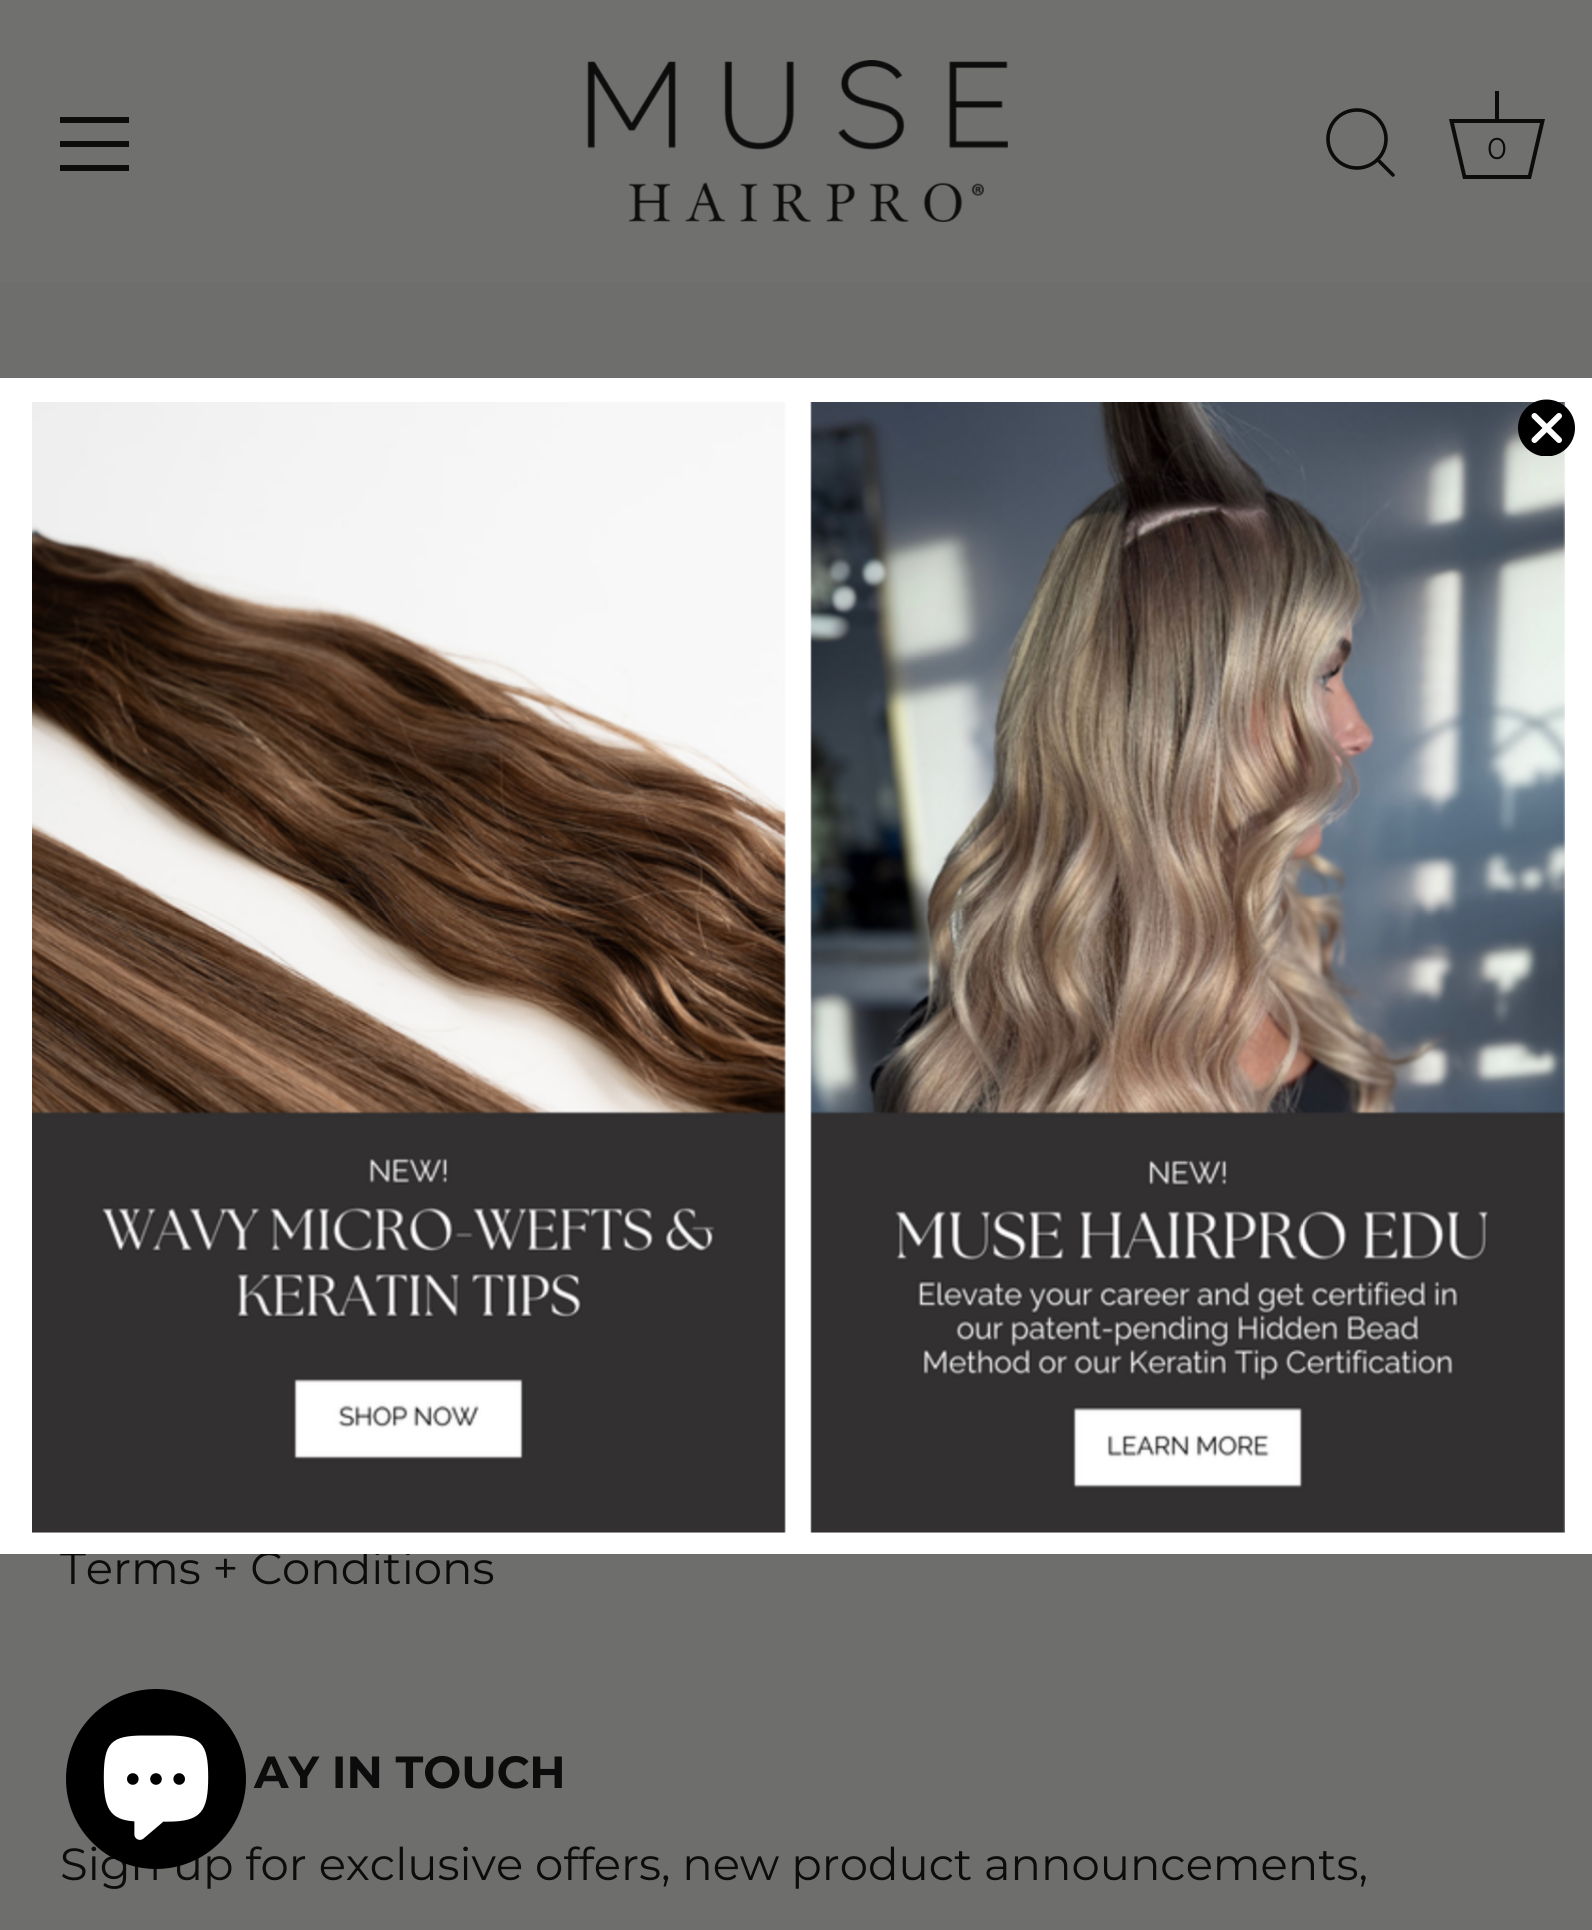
import math
import cairo



def draw_image(context, path, x, y, w, h):
    context.save()
    context.set_source_surface(cairo.ImageSurface.create_from_png(path), x, y)
    context.rectangle(x, y, w, h)
    context.fill()
    context.restore()


def draw(context):
    context.set_source_rgb(110 / 255, 110 / 255, 108 / 255)
    context.paint()
    context.set_source_rgb(112 / 255, 112 / 255, 111 / 255)
    context.rectangle(0, 0, 1592, 282)
    context.fill()
    context.set_source_rgb(12 / 255, 12 / 255, 12 / 255)
    context.rectangle(60, 117, 69, 6)
    context.fill()
    context.rectangle(60, 141, 69, 6)
    context.fill()
    context.rectangle(60, 165, 69, 6)
    context.fill()
    draw_image(context, "images/1.png", 587, 60, 421, 162)
    context.arc(1357, 139, 29, 0, 2 * math.pi)
    context.set_line_width(3.6)
    context.stroke()
    context.new_path()
    context.move_to(1393, 175)
    context.line_to(1377.5, 159.5)
    context.set_line_cap(cairo.LineCap.ROUND)
    context.set_line_join(cairo.LineJoin.ROUND)
    context.stroke()
    context.rectangle(1495, 91, 4, 28)
    context.fill()
    context.new_path()
    context.move_to(1540, 123)
    context.line_to(1528, 175)
    context.line_to(1466, 175)
    context.line_to(1454, 123)
    context.line_to(1540, 123)
    context.move_to(1545, 119)
    context.line_to(1449, 119)
    context.line_to(1463, 179)
    context.line_to(1531, 179)
    context.close_path()
    context.fill()
    context.select_font_face("Montserrat")
    context.set_font_size(30)
    context.move_to(1487, 159)
    context.show_text("0")
    context.set_font_size(45)
    context.move_to(60, 1584)
    context.show_text("Terms + Conditions")
    context.set_source_rgb(1, 1, 1)
    context.rectangle(0, 378, 1592, 1176)
    context.fill()
    draw_image(context, "images/3.png", 810, 402, 755, 1131)
    context.save()
    context.rectangle(1515, 396, 60, 60)
    context.clip()
    context.set_source_rgb(0, 0, 0)
    context.arc(1546.5, 428, 28.5, 0, 2 * math.pi)
    context.fill()
    context.restore()
    context.new_path()
    context.move_to(1534.5, 416)
    context.line_to(1559, 440)
    context.move_to(1534.5, 440)
    context.line_to(1559, 416)
    context.close_path()
    context.set_line_width(6)
    context.stroke()
    draw_image(context, "images/2.png", 32, 402, 754, 1131)
    context.select_font_face("Montserrat", cairo.FontSlant.NORMAL, cairo.FontWeight.BOLD)
    context.set_source_rgb(12 / 255, 12 / 255, 12 / 255)
    context.move_to(254, 1788)
    context.show_text("AY IN TOUCH")
    context.select_font_face("Montserrat")
    context.move_to(60, 1880)
    context.show_text("Sign up for exclusive offers, new product announcements,")
    context.set_source_rgb(0, 0, 0)
    context.new_path()
    context.arc(156, 1779, 90, 0, 2 * math.pi)
    context.fill()
    draw_image(context, "images/4.png", 103, 1735, 106, 105)


surface = cairo.ImageSurface(cairo.Format.RGB24, 1592, 1930)
context = cairo.Context(surface)
options = cairo.FontOptions()
options.set_hint_metrics(cairo.HintMetrics.OFF)
options.set_hint_style(cairo.HintStyle.NONE)
context.set_font_options(options)
context.set_miter_limit(4)
draw(context)
surface.write_to_png("out.png")
